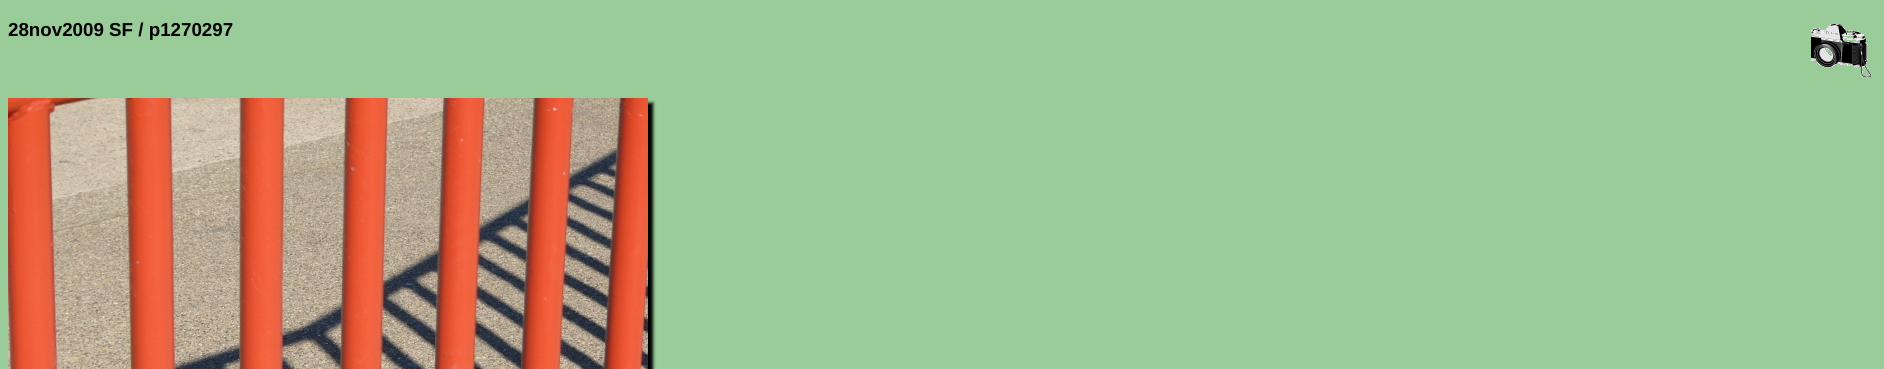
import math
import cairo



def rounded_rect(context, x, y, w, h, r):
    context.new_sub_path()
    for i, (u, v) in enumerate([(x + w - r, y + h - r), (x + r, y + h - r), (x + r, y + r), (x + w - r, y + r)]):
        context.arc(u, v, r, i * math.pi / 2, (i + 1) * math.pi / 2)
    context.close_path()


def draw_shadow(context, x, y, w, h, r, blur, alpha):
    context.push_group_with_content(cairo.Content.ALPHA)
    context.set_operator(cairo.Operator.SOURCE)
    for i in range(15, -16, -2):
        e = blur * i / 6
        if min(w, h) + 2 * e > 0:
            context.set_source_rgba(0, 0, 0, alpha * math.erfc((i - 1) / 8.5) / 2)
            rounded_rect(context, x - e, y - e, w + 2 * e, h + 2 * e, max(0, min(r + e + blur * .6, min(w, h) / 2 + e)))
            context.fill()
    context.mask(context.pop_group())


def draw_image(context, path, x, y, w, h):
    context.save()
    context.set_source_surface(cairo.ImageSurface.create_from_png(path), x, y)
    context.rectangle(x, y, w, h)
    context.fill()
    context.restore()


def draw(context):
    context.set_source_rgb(153 / 255, 204 / 255, 153 / 255)
    context.paint()
    draw_image(context, "images/1.png", 1811, 24, 60, 53)
    context.set_source_rgb(0, 0, 0)
    draw_shadow(context, 13, 103, 640, 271, 0, 1.5, 1)
    draw_image(context, "images/2.png", 8, 98, 640, 271)
    context.select_font_face("Liberation Sans", cairo.FontSlant.NORMAL, cairo.FontWeight.BOLD)
    context.set_font_size(18.75)
    context.set_source_rgb(0, 0, 0)
    context.move_to(8, 36)
    context.show_text("28nov2009 SF / p1270297")


surface = cairo.ImageSurface(cairo.Format.RGB24, 1884, 369)
context = cairo.Context(surface)
options = cairo.FontOptions()
options.set_hint_metrics(cairo.HintMetrics.OFF)
options.set_hint_style(cairo.HintStyle.NONE)
context.set_font_options(options)
context.set_miter_limit(4)
draw(context)
surface.write_to_png("out.png")
